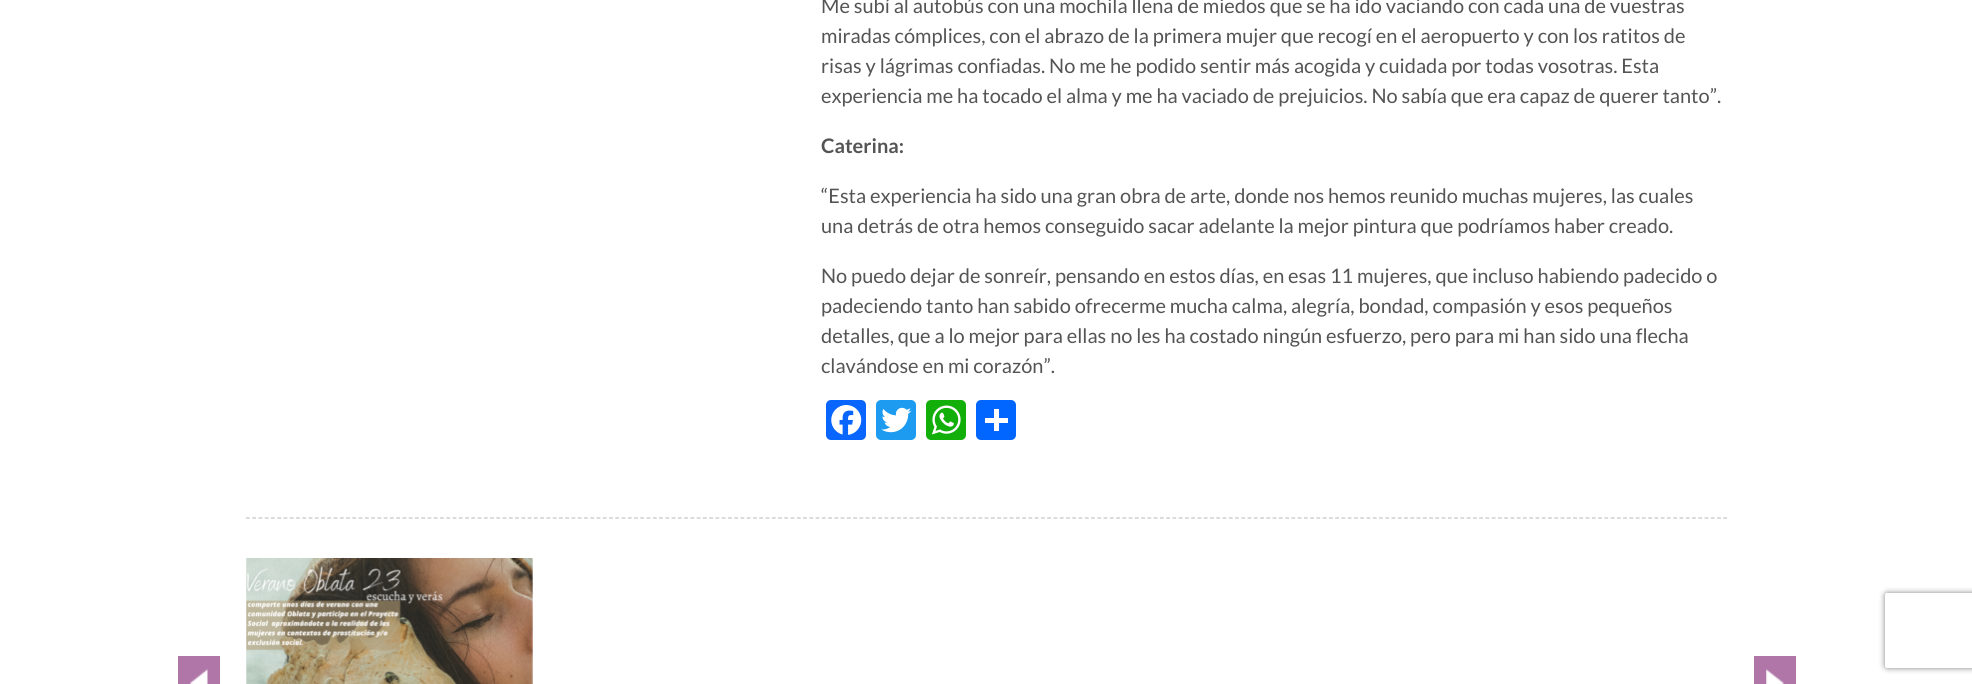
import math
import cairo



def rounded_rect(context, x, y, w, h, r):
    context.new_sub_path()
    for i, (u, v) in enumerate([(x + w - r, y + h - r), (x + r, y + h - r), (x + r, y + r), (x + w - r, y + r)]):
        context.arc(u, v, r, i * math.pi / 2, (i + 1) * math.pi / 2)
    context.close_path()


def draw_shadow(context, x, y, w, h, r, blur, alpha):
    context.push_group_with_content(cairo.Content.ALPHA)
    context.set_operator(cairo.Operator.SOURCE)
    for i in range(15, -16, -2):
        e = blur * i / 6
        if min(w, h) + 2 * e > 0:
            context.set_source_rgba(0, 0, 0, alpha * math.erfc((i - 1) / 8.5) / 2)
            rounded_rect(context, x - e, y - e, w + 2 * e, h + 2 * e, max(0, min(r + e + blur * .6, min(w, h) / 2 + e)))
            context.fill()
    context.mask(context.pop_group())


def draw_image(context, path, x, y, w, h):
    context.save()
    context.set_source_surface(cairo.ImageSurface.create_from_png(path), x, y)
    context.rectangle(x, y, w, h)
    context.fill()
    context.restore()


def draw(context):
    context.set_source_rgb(1, 1, 1)
    context.paint()
    context.set_source_rgb(8 / 255, 102 / 255, 1)
    rounded_rect(context, 826, 400, 40, 40, 5)
    context.fill()
    draw_image(context, "images/1.png", 831, 405, 31, 30)
    context.set_source_rgb(29 / 255, 155 / 255, 240 / 255)
    rounded_rect(context, 876, 400, 40, 40, 5)
    context.fill()
    draw_image(context, "images/2.png", 881, 407, 31, 26)
    context.set_source_rgb(18 / 255, 175 / 255, 10 / 255)
    rounded_rect(context, 926, 400, 40, 40, 5)
    context.fill()
    draw_image(context, "images/3.png", 932, 405, 29, 30)
    context.set_source_rgb(1 / 255, 102 / 255, 1)
    rounded_rect(context, 976, 400, 40, 40, 5)
    context.fill()
    context.set_source_rgb(1, 1, 1)
    context.rectangle(994, 409, 5, 22)
    context.fill()
    context.rectangle(985, 418, 23, 5)
    context.fill()
    context.new_path()
    context.move_to(246, 518)
    context.line_to(1727.5, 518)
    context.set_source_rgb(195 / 255, 195 / 255, 195 / 255)
    context.set_line_width(1.2)
    context.set_dash([3.75, 2.51])
    context.stroke()
    draw_image(context, "images/4.png", 246, 558, 287, 126)
    context.set_source_rgb(175 / 255, 118 / 255, 167 / 255)
    context.rectangle(178, 656, 42, 28)
    context.fill()
    draw_image(context, "images/5.png", 190, 669, 18, 15)
    context.rectangle(1754, 656, 42, 28)
    context.fill()
    draw_image(context, "images/6.png", 1766, 669, 18, 15)
    context.save()
    context.set_fill_rule(cairo.FillRule.EVEN_ODD)
    context.new_path()
    context.move_to(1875, 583)
    context.line_to(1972, 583)
    context.line_to(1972, 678)
    context.line_to(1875, 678)
    context.close_path()
    context.move_to(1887.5, 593)
    context.line_to(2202.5, 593)
    context.curve_to(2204, 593, 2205, 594, 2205, 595.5)
    context.line_to(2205, 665.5)
    context.curve_to(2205, 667, 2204, 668, 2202.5, 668)
    context.line_to(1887.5, 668)
    context.curve_to(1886, 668, 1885, 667, 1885, 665.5)
    context.line_to(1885, 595.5)
    context.curve_to(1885, 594, 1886, 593, 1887.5, 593)
    context.close_path()
    context.clip()
    context.set_source_rgb(128 / 255, 128 / 255, 128 / 255)
    draw_shadow(context, 1885, 593, 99, 75, 2.5, 3, 1)
    context.restore()
    context.select_font_face("Lato")
    context.set_font_size(20)
    context.set_source_rgb(84 / 255, 84 / 255, 84 / 255)
    context.move_to(821, 13)
    context.show_text("Me subí al autobús con una mochila llena de miedos que se ha ido vaciando con cada una de vuestras")
    context.move_to(821, 43)
    context.show_text("miradas cómplices, con el abrazo de la primera mujer que recogí en el aeropuerto y con los ratitos de")
    context.move_to(821, 73)
    context.show_text("risas y lágrimas confiadas. No me he podido sentir más acogida y cuidada por todas vosotras. Esta")
    context.move_to(821, 103)
    context.show_text("experiencia me ha tocado el alma y me ha vaciado de prejuicios. No sabía que era capaz de querer tanto”.")
    context.select_font_face("Lato", cairo.FontSlant.NORMAL, cairo.FontWeight.BOLD)
    context.move_to(821, 153)
    context.show_text("Caterina:")
    context.select_font_face("Lato")
    context.move_to(821, 203)
    context.show_text("“Esta experiencia ha sido una gran obra de arte, donde nos hemos reunido muchas mujeres, las cuales")
    context.move_to(821, 233)
    context.show_text("una detrás de otra hemos conseguido sacar adelante la mejor pintura que podríamos haber creado.")
    context.move_to(821, 283)
    context.show_text("No puedo dejar de sonreír, pensando en estos días, en esas 11 mujeres, que incluso habiendo padecido o")
    context.move_to(821, 313)
    context.show_text("padeciendo tanto han sabido ofrecerme mucha calma, alegría, bondad, compasión y esos pequeños")
    context.move_to(821, 343)
    context.show_text("detalles, que a lo mejor para ellas no les ha costado ningún esfuerzo, pero para mi han sido una flecha")
    context.move_to(821, 373)
    context.show_text("clavándose en mi corazón”.")


surface = cairo.ImageSurface(cairo.Format.RGB24, 1972, 684)
context = cairo.Context(surface)
options = cairo.FontOptions()
options.set_hint_metrics(cairo.HintMetrics.OFF)
options.set_hint_style(cairo.HintStyle.NONE)
context.set_font_options(options)
context.set_miter_limit(4)
draw(context)
surface.write_to_png("out.png")
